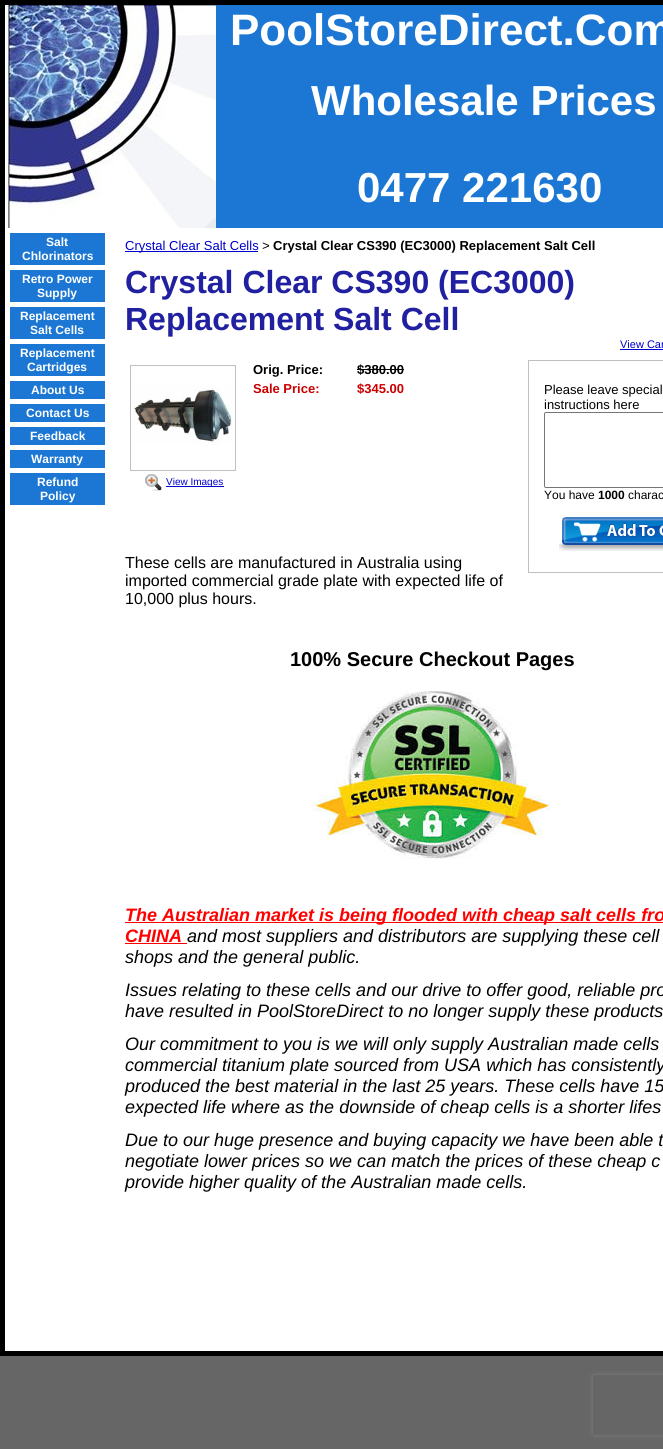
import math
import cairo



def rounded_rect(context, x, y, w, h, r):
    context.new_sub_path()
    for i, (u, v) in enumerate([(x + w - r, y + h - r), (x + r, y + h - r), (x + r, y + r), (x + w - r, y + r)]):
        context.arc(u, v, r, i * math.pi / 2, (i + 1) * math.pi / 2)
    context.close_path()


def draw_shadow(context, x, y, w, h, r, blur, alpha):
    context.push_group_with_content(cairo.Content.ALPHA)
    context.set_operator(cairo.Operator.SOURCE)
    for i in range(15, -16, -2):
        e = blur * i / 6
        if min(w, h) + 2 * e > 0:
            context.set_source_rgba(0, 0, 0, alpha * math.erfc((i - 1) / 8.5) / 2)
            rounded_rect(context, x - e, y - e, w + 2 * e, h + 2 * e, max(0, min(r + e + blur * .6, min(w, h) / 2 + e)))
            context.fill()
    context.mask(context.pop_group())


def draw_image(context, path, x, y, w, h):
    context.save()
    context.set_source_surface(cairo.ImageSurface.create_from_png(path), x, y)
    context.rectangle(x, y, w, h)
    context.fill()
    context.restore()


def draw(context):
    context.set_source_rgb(102 / 255, 102 / 255, 102 / 255)
    context.paint()
    context.set_source_rgb(0, 0, 0)
    context.rectangle(0, 0, 663, 1356)
    context.fill()
    context.set_source_rgb(27 / 255, 119 / 255, 211 / 255)
    context.rectangle(216, 5, 447, 223)
    context.fill()
    draw_image(context, "images/1.png", 5, 5, 211, 223)
    context.set_source_rgb(1, 1, 1)
    context.rectangle(5, 228, 658, 1123)
    context.fill()
    context.set_source_rgb(27 / 255, 119 / 255, 211 / 255)
    context.rectangle(10, 233, 95, 32)
    context.fill()
    context.rectangle(10, 270, 95, 32)
    context.fill()
    context.rectangle(10, 307, 95, 32)
    context.fill()
    context.rectangle(10, 344, 95, 32)
    context.fill()
    context.rectangle(10, 381, 95, 18)
    context.fill()
    context.rectangle(10, 404, 95, 18)
    context.fill()
    context.rectangle(10, 427, 95, 18)
    context.fill()
    context.rectangle(10, 450, 95, 18)
    context.fill()
    context.rectangle(10, 473, 95, 32)
    context.fill()
    context.set_source_rgb(0, 0, 204 / 255)
    context.rectangle(125, 251, 133, 1)
    context.fill()
    context.rectangle(620, 349, 43, 1)
    context.fill()
    context.set_source_rgb(0, 0, 0)
    context.rectangle(357, 369, 47, 1)
    context.fill()
    context.rectangle(130.5, 365.5, 105, 105)
    context.set_source_rgb(192 / 255, 192 / 255, 192 / 255)
    context.set_line_width(1)
    context.stroke()
    draw_image(context, "images/2.png", 133, 385, 100, 60)
    draw_image(context, "images/3.png", 145, 474, 17, 17)
    context.set_source_rgb(0, 0, 204 / 255)
    context.rectangle(166, 486, 58, 1)
    context.fill()
    context.rectangle(528.5, 360.5, 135, 212)
    context.set_source_rgb(192 / 255, 192 / 255, 192 / 255)
    context.stroke()
    rounded_rect(context, 544.5, 412.5, 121, 75, 1.5)
    context.set_source_rgb(118 / 255, 118 / 255, 118 / 255)
    context.stroke()
    draw_image(context, "images/4.png", 559, 517, 104, 34)
    draw_image(context, "images/5.png", 311, 691, 240, 168)
    context.set_source_rgb(1, 0, 0)
    context.rectangle(125, 922, 538, 1)
    context.fill()
    context.rectangle(125, 943, 62, 1)
    context.fill()
    context.save()
    context.set_fill_rule(cairo.FillRule.EVEN_ODD)
    context.new_path()
    context.move_to(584, 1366)
    context.line_to(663, 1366)
    context.line_to(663, 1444)
    context.line_to(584, 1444)
    context.close_path()
    context.move_to(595, 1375)
    context.line_to(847, 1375)
    context.curve_to(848, 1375, 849, 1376, 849, 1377)
    context.line_to(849, 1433)
    context.curve_to(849, 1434, 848, 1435, 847, 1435)
    context.line_to(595, 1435)
    context.curve_to(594, 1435, 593, 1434, 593, 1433)
    context.line_to(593, 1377)
    context.curve_to(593, 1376, 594, 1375, 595, 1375)
    context.close_path()
    context.clip()
    context.set_source_rgb(128 / 255, 128 / 255, 128 / 255)
    draw_shadow(context, 593, 1375, 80, 60, 2, 2.5, 1)
    context.restore()
    context.select_font_face("Liberation Sans", cairo.FontSlant.NORMAL, cairo.FontWeight.BOLD)
    context.set_font_size(44)
    context.set_source_rgb(1, 1, 1)
    context.move_to(230, 45)
    context.show_text("PoolStoreDirect.Com")
    context.set_font_size(42)
    context.move_to(311, 115)
    context.show_text("Wholesale Prices")
    context.move_to(357, 202)
    context.show_text("0477 221630")
    context.set_font_size(12)
    context.move_to(46, 246)
    context.show_text("Salt")
    context.move_to(22, 260)
    context.show_text("Chlorinators")
    context.move_to(22, 283)
    context.show_text("Retro Power")
    context.move_to(37, 297)
    context.show_text("Supply")
    context.move_to(20, 320)
    context.show_text("Replacement")
    context.move_to(30, 334)
    context.show_text("Salt Cells")
    context.move_to(20, 357)
    context.show_text("Replacement")
    context.move_to(27, 371)
    context.show_text("Cartridges")
    context.move_to(31, 394)
    context.show_text("About Us")
    context.move_to(26, 417)
    context.show_text("Contact Us")
    context.move_to(30, 440)
    context.show_text("Feedback")
    context.move_to(31, 463)
    context.show_text("Warranty")
    context.move_to(37, 486)
    context.show_text("Refund")
    context.move_to(40, 500)
    context.show_text("Policy")
    context.select_font_face("Liberation Sans")
    context.set_font_size(13)
    context.set_source_rgb(0, 0, 204 / 255)
    context.move_to(125, 250)
    context.show_text("Crystal Clear Salt Cells")
    context.select_font_face("Liberation Mono")
    context.set_source_rgb(0, 0, 0)
    context.move_to(262, 250)
    context.show_text(">")
    context.select_font_face("Liberation Sans", cairo.FontSlant.NORMAL, cairo.FontWeight.BOLD)
    context.move_to(273, 250)
    context.show_text("Crystal Clear CS390 (EC3000) Replacement Salt Cell")
    context.set_font_size(32)
    context.set_source_rgb(32 / 255, 32 / 255, 160 / 255)
    context.move_to(125, 293)
    context.show_text("Crystal Clear CS390 (EC3000)")
    context.move_to(125, 330)
    context.show_text("Replacement Salt Cell")
    context.select_font_face("Liberation Sans")
    context.set_font_size(11)
    context.set_source_rgb(0, 0, 204 / 255)
    context.move_to(620, 348)
    context.show_text("View Car")
    context.select_font_face("Liberation Sans", cairo.FontSlant.NORMAL, cairo.FontWeight.BOLD)
    context.set_font_size(13)
    context.set_source_rgb(0, 0, 0)
    context.move_to(253, 374)
    context.show_text("Orig. Price:")
    context.move_to(357, 374)
    context.show_text("$380.00")
    context.set_source_rgb(204 / 255, 0, 0)
    context.move_to(253, 393)
    context.show_text("Sale Price:")
    context.move_to(357, 393)
    context.show_text("$345.00")
    context.select_font_face("Liberation Sans")
    context.set_font_size(10)
    context.set_source_rgb(0, 0, 204 / 255)
    context.move_to(166, 485)
    context.show_text("View Images")
    context.set_font_size(13)
    context.set_source_rgb(0, 0, 0)
    context.move_to(544, 394)
    context.show_text("Please leave special")
    context.move_to(544, 409)
    context.show_text("instructions here")
    context.set_font_size(12)
    context.move_to(544, 499)
    context.show_text("You have")
    context.select_font_face("Liberation Sans", cairo.FontSlant.NORMAL, cairo.FontWeight.BOLD)
    context.move_to(598, 499)
    context.show_text("1000")
    context.select_font_face("Liberation Sans")
    context.move_to(628, 499)
    context.show_text("charac")
    context.set_font_size(16)
    context.move_to(125, 568)
    context.show_text("These cells are manufactured in Australia using")
    context.move_to(125, 586)
    context.show_text("imported commercial grade plate with expected life of")
    context.move_to(125, 604)
    context.show_text("10,000 plus hours.")
    context.select_font_face("Liberation Sans", cairo.FontSlant.NORMAL, cairo.FontWeight.BOLD)
    context.set_font_size(20)
    context.move_to(290, 666)
    context.show_text("100% Secure Checkout Pages")
    context.select_font_face("Liberation Sans", cairo.FontSlant.ITALIC, cairo.FontWeight.BOLD)
    context.set_font_size(18)
    context.set_source_rgb(1, 0, 0)
    context.move_to(125, 921)
    context.show_text("The Australian market is being flooded with cheap salt cells fro")
    context.move_to(125, 942)
    context.show_text("CHINA")
    context.select_font_face("Liberation Sans", cairo.FontSlant.ITALIC)
    context.set_source_rgb(0, 0, 0)
    context.move_to(187, 942)
    context.show_text("and most suppliers and distributors are supplying these cell")
    context.move_to(125, 963)
    context.show_text("shops and the general public.")
    context.move_to(125, 996)
    context.show_text("Issues relating to these cells and our drive to offer good, reliable pro")
    context.move_to(125, 1017)
    context.show_text("have resulted in PoolStoreDirect to no longer supply these products")
    context.move_to(125, 1050)
    context.show_text("Our commitment to you is we will only supply Australian made cells")
    context.move_to(125, 1071)
    context.show_text("commercial titanium plate sourced from USA which has consistently")
    context.move_to(125, 1092)
    context.show_text("produced the best material in the last 25 years. These cells have 15")
    context.move_to(125, 1113)
    context.show_text("expected life where as the downside of cheap cells is a shorter lifes")
    context.move_to(125, 1146)
    context.show_text("Due to our huge presence and buying capacity we have been able t")
    context.move_to(125, 1167)
    context.show_text("negotiate lower prices so we can match the prices of these cheap c")
    context.move_to(125, 1188)
    context.show_text("provide higher quality of the Australian made cells.")


surface = cairo.ImageSurface(cairo.Format.RGB24, 663, 1449)
context = cairo.Context(surface)
options = cairo.FontOptions()
options.set_hint_metrics(cairo.HintMetrics.OFF)
options.set_hint_style(cairo.HintStyle.NONE)
context.set_font_options(options)
context.set_miter_limit(4)
draw(context)
surface.write_to_png("out.png")
